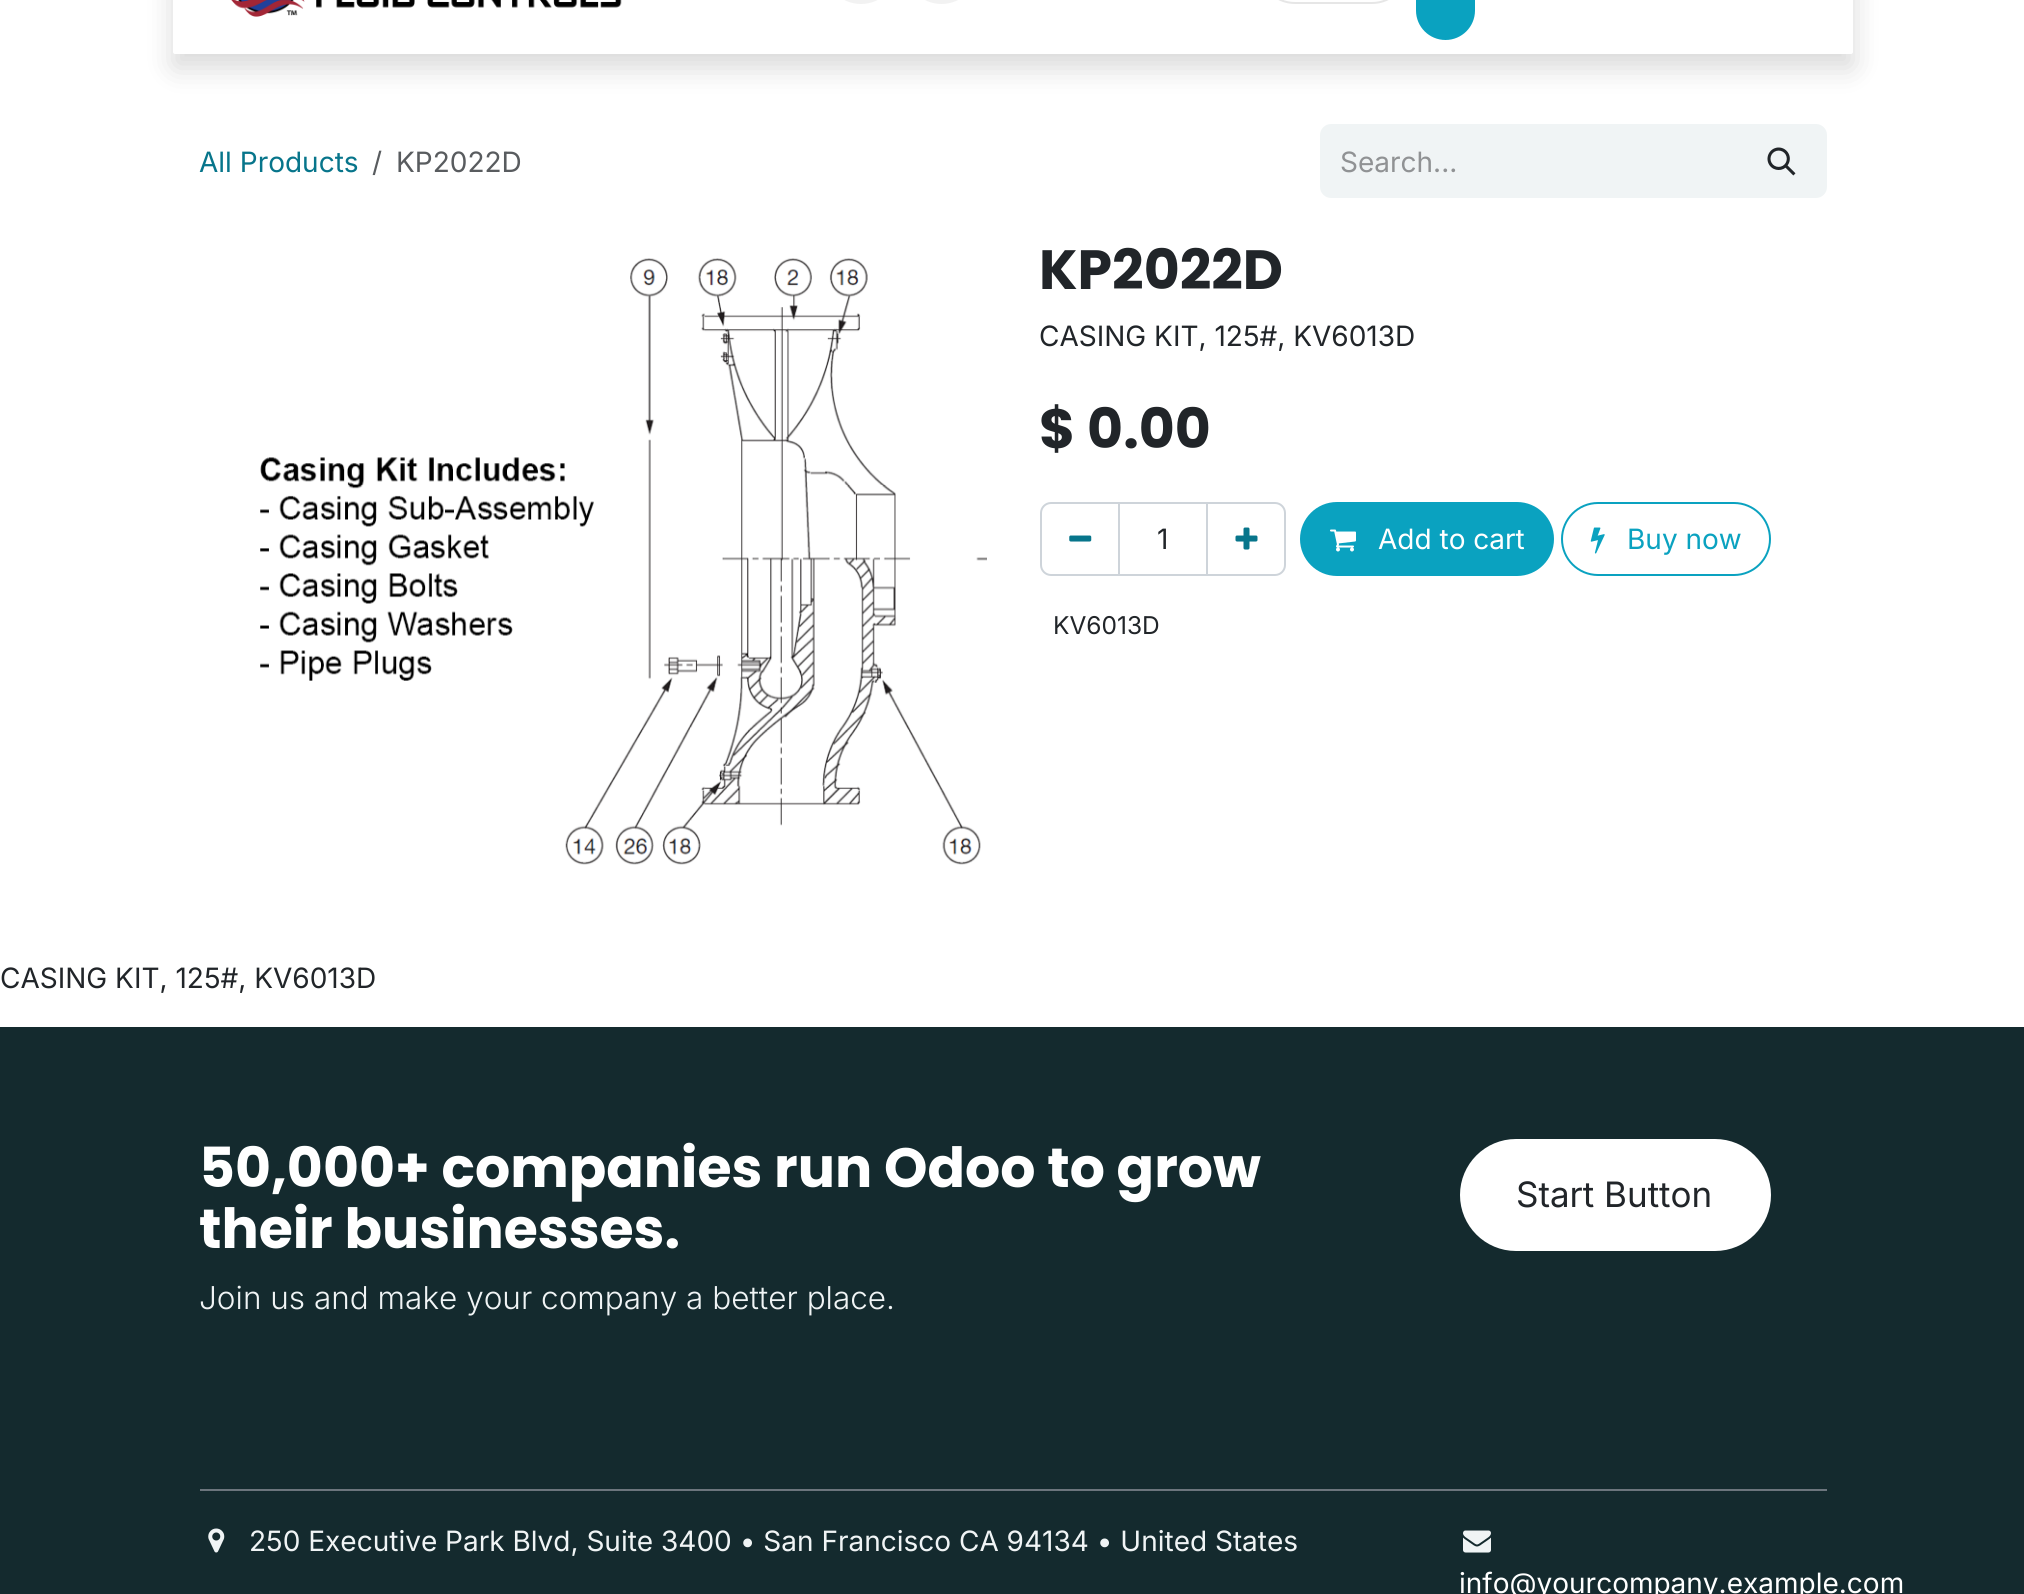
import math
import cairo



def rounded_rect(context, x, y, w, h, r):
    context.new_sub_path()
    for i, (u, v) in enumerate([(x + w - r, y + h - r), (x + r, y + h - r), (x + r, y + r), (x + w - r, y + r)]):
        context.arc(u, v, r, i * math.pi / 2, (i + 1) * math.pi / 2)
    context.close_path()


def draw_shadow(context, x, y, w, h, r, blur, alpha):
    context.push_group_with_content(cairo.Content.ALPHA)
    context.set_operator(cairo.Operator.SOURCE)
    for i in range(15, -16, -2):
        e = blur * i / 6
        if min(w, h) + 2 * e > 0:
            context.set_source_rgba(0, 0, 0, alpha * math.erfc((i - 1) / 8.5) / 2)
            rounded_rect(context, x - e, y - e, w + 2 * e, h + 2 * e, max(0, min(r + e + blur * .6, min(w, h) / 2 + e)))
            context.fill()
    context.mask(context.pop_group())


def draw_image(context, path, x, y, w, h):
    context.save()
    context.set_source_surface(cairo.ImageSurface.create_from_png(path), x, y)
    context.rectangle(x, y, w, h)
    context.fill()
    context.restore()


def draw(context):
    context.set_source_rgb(1, 1, 1)
    context.paint()
    context.set_source_rgb(0, 0, 0)
    draw_shadow(context, 173, -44, 1680, 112, 2, 14, 0.15)
    context.set_source_rgb(1, 1, 1)
    rounded_rect(context, 173, -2, 1680, 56, 2)
    context.fill()
    draw_image(context, "images/1.png", 231, 0, 391, 17)
    context.set_source_rgb(242 / 255, 242 / 255, 242 / 255)
    rounded_rect(context, 824, -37, 74, 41, 37)
    context.fill()
    rounded_rect(context, 905, -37, 73, 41, 36.5)
    context.fill()
    rounded_rect(context, 1259, -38, 149, 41, 36)
    context.set_source_rgb(230 / 255, 230 / 255, 230 / 255)
    context.stroke()
    context.set_source_rgb(10 / 255, 162 / 255, 192 / 255)
    rounded_rect(context, 1417, -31, 57, 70, 28.5)
    context.fill_preserve()
    context.stroke()
    context.set_source_rgb(240 / 255, 244 / 255, 245 / 255)
    context.new_path()
    context.move_to(1331, 124)
    context.line_to(1740, 124)
    context.line_to(1740, 198)
    context.line_to(1331, 198)
    context.curve_to(1325, 198, 1320, 193, 1320, 187)
    context.line_to(1320, 135)
    context.curve_to(1320, 129, 1325, 124, 1331, 124)
    context.close_path()
    context.fill()
    context.new_path()
    context.move_to(1739, 125)
    context.line_to(1816, 125)
    context.curve_to(1821.5, 125, 1826, 129.5, 1826, 135)
    context.line_to(1826, 187)
    context.curve_to(1826, 192.5, 1821.5, 197, 1816, 197)
    context.line_to(1739, 197)
    context.close_path()
    context.fill_preserve()
    context.stroke()
    draw_image(context, "images/2.png", 1767, 147, 29, 29)
    draw_image(context, "images/3.png", 260, 258, 727, 607)
    context.rectangle(1119, 503, 88, 72)
    context.set_source_rgb(206 / 255, 212 / 255, 218 / 255)
    context.stroke()
    context.new_path()
    context.move_to(1051, 503)
    context.line_to(1119, 503)
    context.line_to(1119, 575)
    context.line_to(1051, 575)
    context.curve_to(1045.5, 575, 1041, 570.5, 1041, 565)
    context.line_to(1041, 513)
    context.curve_to(1041, 507.5, 1045.5, 503, 1051, 503)
    context.close_path()
    context.stroke()
    draw_image(context, "images/4.png", 1069, 535, 23, 7)
    context.new_path()
    context.move_to(1207, 503)
    context.line_to(1275, 503)
    context.curve_to(1280.5, 503, 1285, 507.5, 1285, 513)
    context.line_to(1285, 565)
    context.curve_to(1285, 570.5, 1280.5, 575, 1275, 575)
    context.line_to(1207, 575)
    context.close_path()
    context.stroke()
    draw_image(context, "images/5.png", 1235, 527, 23, 23)
    context.set_source_rgb(10 / 255, 162 / 255, 192 / 255)
    rounded_rect(context, 1301, 503, 252, 72, 36)
    context.fill_preserve()
    context.stroke()
    draw_image(context, "images/6.png", 1330, 529, 26, 23)
    rounded_rect(context, 1562, 503, 208, 72, 36)
    context.stroke()
    draw_image(context, "images/7.png", 1590, 527, 15, 27)
    context.set_source_rgb(20 / 255, 42 / 255, 46 / 255)
    context.rectangle(0, 1027, 2024, 567)
    context.fill()
    context.set_source_rgb(1, 1, 1)
    rounded_rect(context, 1461, 1140, 309, 110, 55)
    context.fill_preserve()
    context.stroke()
    context.set_source_rgb(108 / 255, 117 / 255, 125 / 255)
    context.rectangle(200, 1489, 1627, 2)
    context.fill()
    draw_image(context, "images/8.png", 208, 1528, 17, 25)
    draw_image(context, "images/9.png", 1463, 1530, 28, 23)
    context.select_font_face("Inter")
    context.set_font_size(28)
    context.set_source_rgb(7 / 255, 117 / 255, 139 / 255)
    context.move_to(199, 172)
    context.show_text("All Products")
    context.set_source_rgb(89 / 255, 92 / 255, 95 / 255)
    context.move_to(372, 172)
    context.show_text("/")
    context.move_to(396, 172)
    context.show_text("KP2022D")
    context.set_source_rgb(144 / 255, 146 / 255, 148 / 255)
    context.move_to(1340, 172)
    context.show_text("Search...")
    context.select_font_face("Poppins", cairo.FontSlant.NORMAL, cairo.FontWeight.BOLD)
    context.set_font_size(55.3)
    context.set_source_rgb(33 / 255, 37 / 255, 41 / 255)
    context.move_to(1039, 289)
    context.show_text("KP2022D")
    context.select_font_face("Inter")
    context.set_font_size(28)
    context.move_to(1039, 346)
    context.show_text("CASING KIT, 125#, KV6013D")
    context.select_font_face("Poppins", cairo.FontSlant.NORMAL, cairo.FontWeight.BOLD)
    context.set_font_size(55.3)
    context.move_to(1039, 448)
    context.show_text("$ 0.00")
    context.select_font_face("Inter")
    context.set_font_size(28)
    context.move_to(1157, 549)
    context.show_text("1")
    context.set_source_rgb(1, 1, 1)
    context.move_to(1378, 549)
    context.show_text("Add to cart")
    context.set_source_rgb(10 / 255, 162 / 255, 192 / 255)
    context.move_to(1627, 549)
    context.show_text("Buy now")
    context.set_font_size(24.5)
    context.set_source_rgb(33 / 255, 37 / 255, 41 / 255)
    context.move_to(1053, 634)
    context.show_text("KV6013D")
    context.set_font_size(28)
    context.move_to(0, 988)
    context.show_text("CASING KIT, 125#, KV6013D")
    context.select_font_face("Poppins", cairo.FontSlant.NORMAL, cairo.FontWeight.BOLD)
    context.set_font_size(55.3)
    context.set_source_rgb(1, 1, 1)
    context.move_to(199, 1187)
    context.show_text("50,000+ companies run Odoo to grow")
    context.move_to(199, 1248)
    context.show_text("their businesses.")
    context.select_font_face("Inter Light")
    context.set_font_size(31.5)
    context.set_source_rgb(240 / 255, 244 / 255, 245 / 255)
    context.move_to(199, 1309)
    context.show_text("Join us and make your company a better place.")
    context.select_font_face("Inter")
    context.set_font_size(35)
    context.set_source_rgb(33 / 255, 37 / 255, 41 / 255)
    context.move_to(1516, 1207)
    context.show_text("Start Button")
    context.set_font_size(28)
    context.set_source_rgb(240 / 255, 244 / 255, 245 / 255)
    context.move_to(249, 1551)
    context.show_text("250 Executive Park Blvd, Suite 3400 • San Francisco CA 94134 • United States")
    context.set_source_rgb(1, 1, 1)
    context.move_to(1459, 1593)
    context.show_text("info@yourcompany.example.com")


surface = cairo.ImageSurface(cairo.Format.RGB24, 2024, 1594)
context = cairo.Context(surface)
options = cairo.FontOptions()
options.set_hint_metrics(cairo.HintMetrics.OFF)
options.set_hint_style(cairo.HintStyle.NONE)
context.set_font_options(options)
context.set_miter_limit(4)
draw(context)
surface.write_to_png("out.png")
